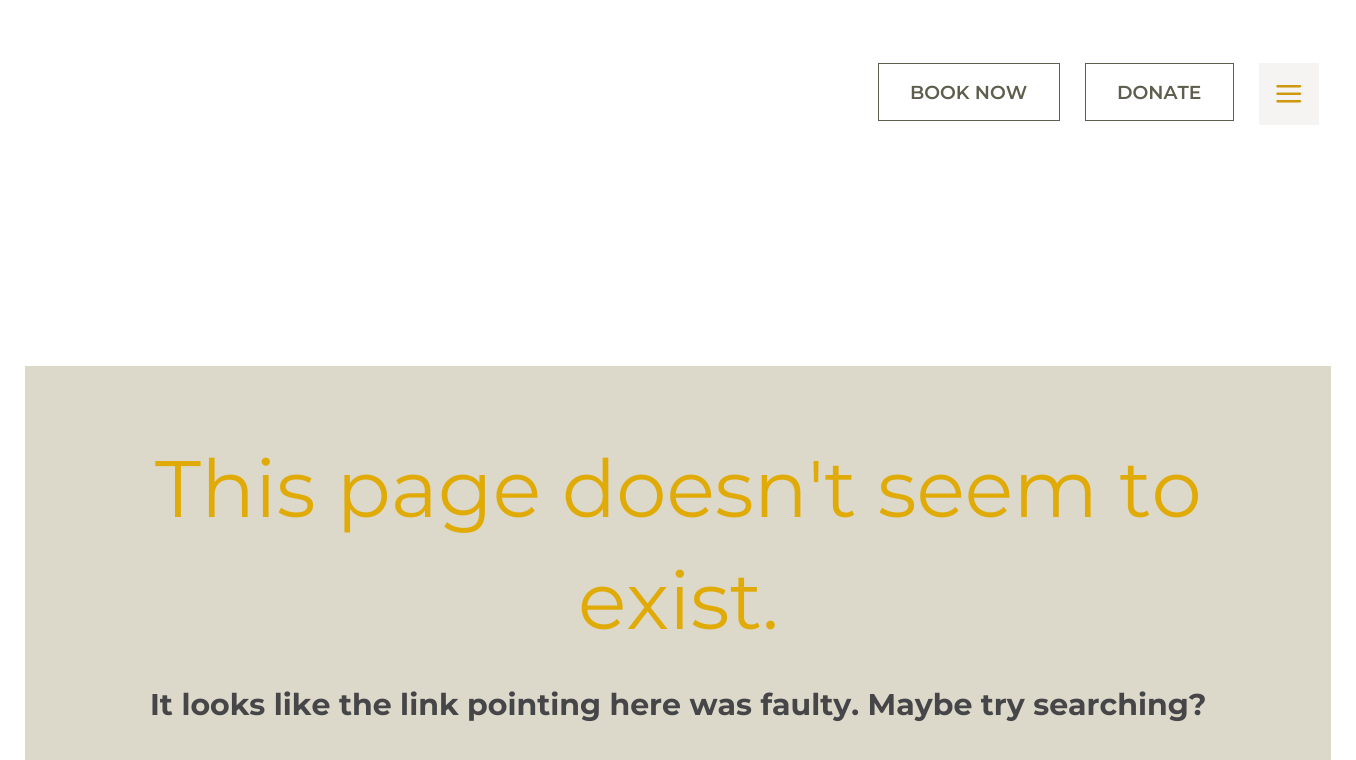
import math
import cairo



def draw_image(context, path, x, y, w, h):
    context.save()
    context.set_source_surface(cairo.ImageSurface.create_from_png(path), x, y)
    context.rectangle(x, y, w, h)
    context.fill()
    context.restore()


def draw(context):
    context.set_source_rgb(1, 1, 1)
    context.paint()
    context.rectangle(878.5, 63.5, 181, 57)
    context.set_source_rgb(95 / 255, 94 / 255, 78 / 255)
    context.set_line_width(1)
    context.stroke()
    context.rectangle(1085.5, 63.5, 148, 57)
    context.stroke()
    context.set_source_rgb(245 / 255, 244 / 255, 242 / 255)
    context.rectangle(1259, 63, 60, 62)
    context.fill()
    draw_image(context, "images/1.png", 1276, 85, 26, 18)
    context.set_source_rgb(220 / 255, 217 / 255, 203 / 255)
    context.rectangle(25, 366, 1306, 394)
    context.fill()
    context.select_font_face("Montserrat SemiBold")
    context.set_font_size(18.75)
    context.set_source_rgb(95 / 255, 94 / 255, 78 / 255)
    context.move_to(910, 99)
    context.show_text("BOOK NOW")
    context.move_to(1117, 99)
    context.show_text("DONATE")
    context.select_font_face("Montserrat")
    context.set_font_size(80)
    context.set_source_rgb(225 / 255, 171 / 255, 7 / 255)
    context.move_to(155, 517)
    context.show_text("This page doesn't seem to")
    context.move_to(578, 629)
    context.show_text("exist.")
    context.select_font_face("Montserrat", cairo.FontSlant.NORMAL, cairo.FontWeight.BOLD)
    context.set_font_size(30)
    context.set_source_rgb(70 / 255, 69 / 255, 71 / 255)
    context.move_to(150, 715)
    context.show_text("It looks like the link pointing here was faulty. Maybe try searching?")


surface = cairo.ImageSurface(cairo.Format.RGB24, 1356, 760)
context = cairo.Context(surface)
options = cairo.FontOptions()
options.set_hint_metrics(cairo.HintMetrics.OFF)
options.set_hint_style(cairo.HintStyle.NONE)
context.set_font_options(options)
context.set_miter_limit(4)
draw(context)
surface.write_to_png("out.png")
